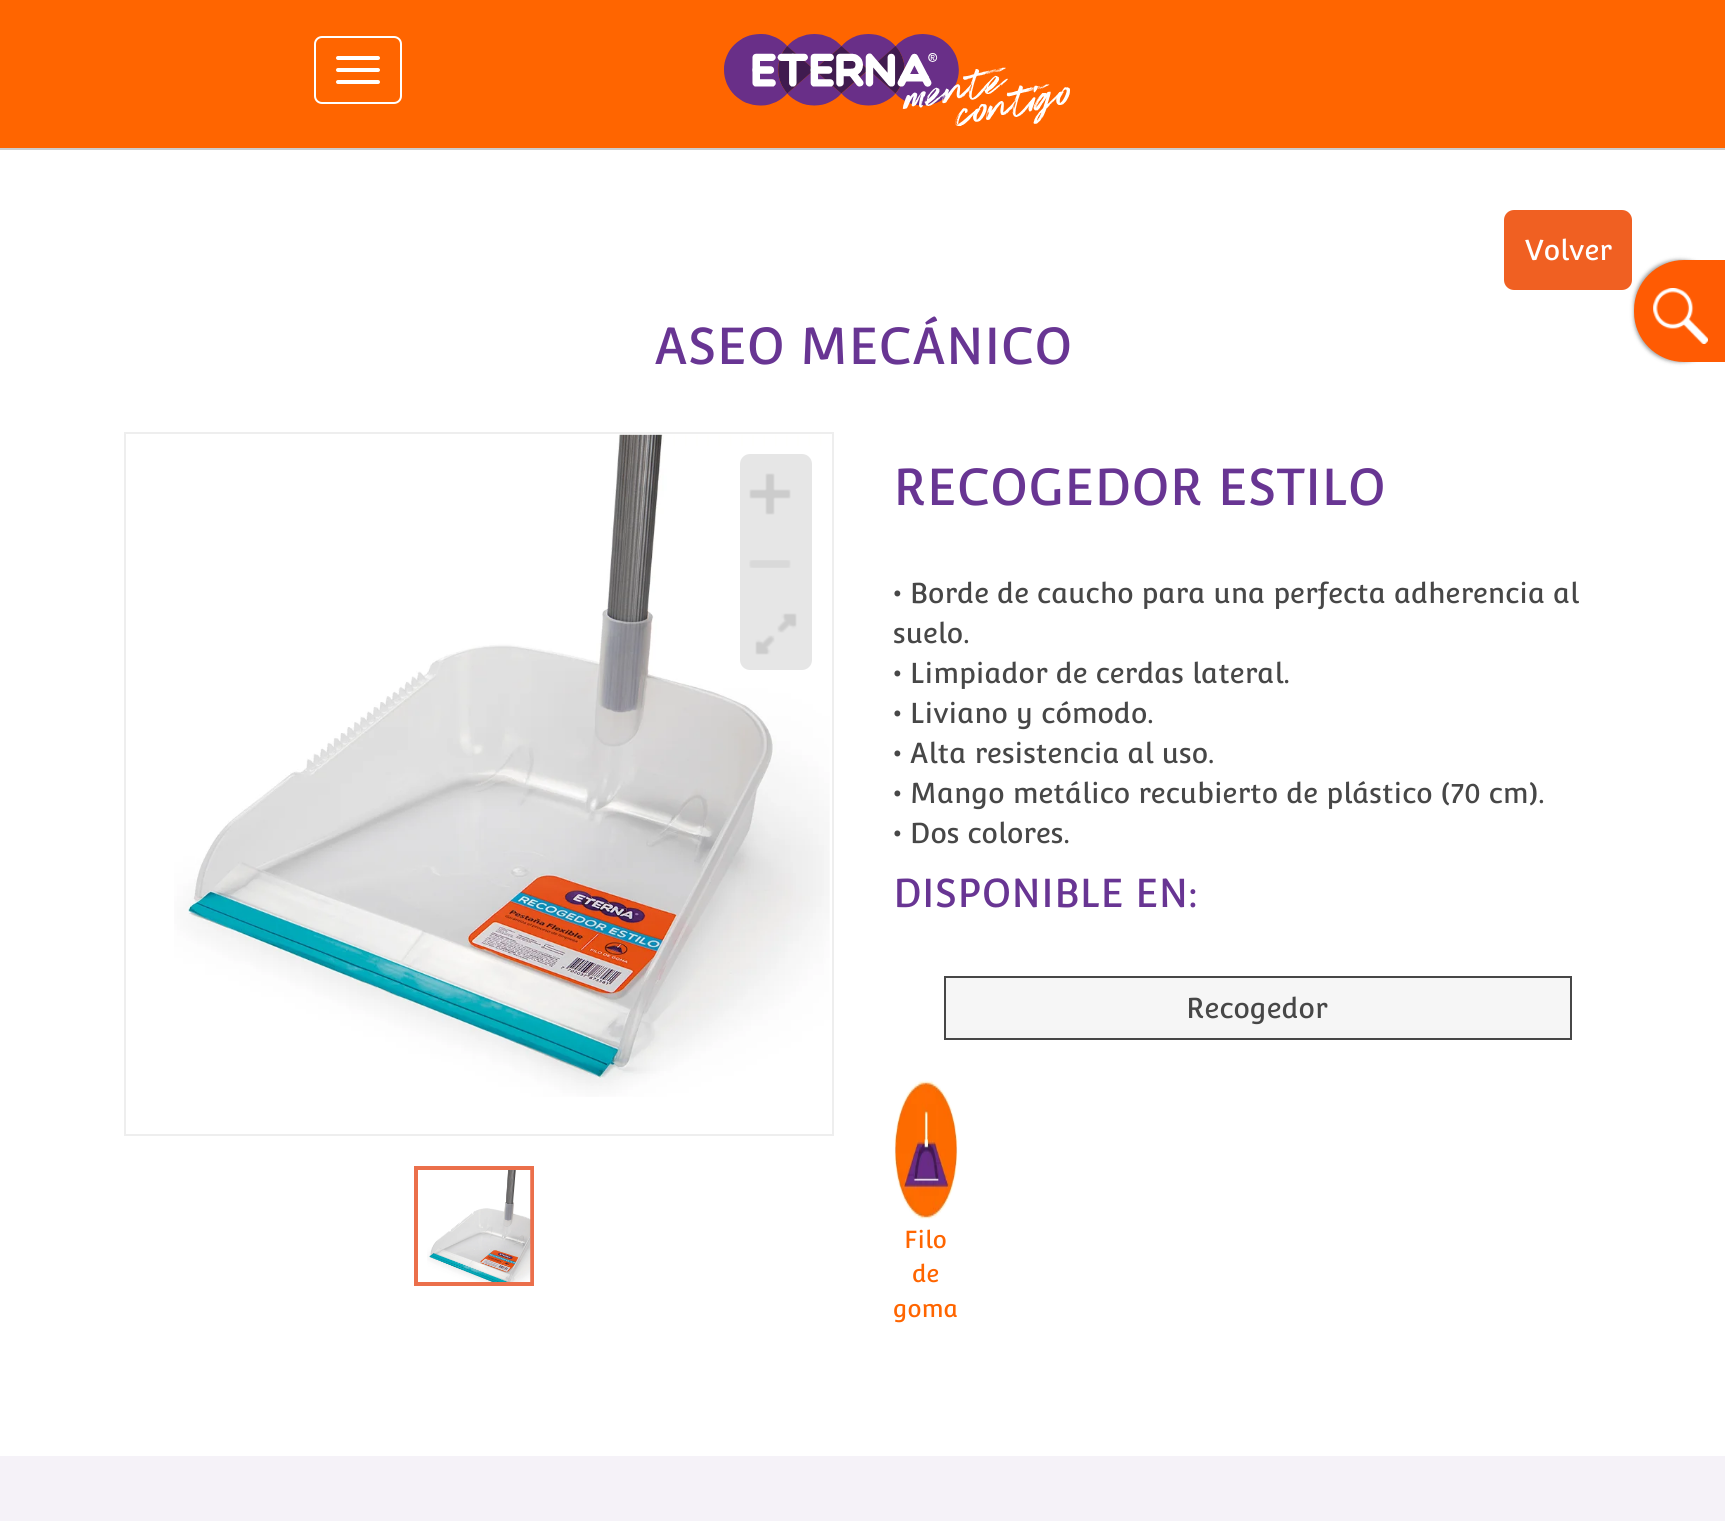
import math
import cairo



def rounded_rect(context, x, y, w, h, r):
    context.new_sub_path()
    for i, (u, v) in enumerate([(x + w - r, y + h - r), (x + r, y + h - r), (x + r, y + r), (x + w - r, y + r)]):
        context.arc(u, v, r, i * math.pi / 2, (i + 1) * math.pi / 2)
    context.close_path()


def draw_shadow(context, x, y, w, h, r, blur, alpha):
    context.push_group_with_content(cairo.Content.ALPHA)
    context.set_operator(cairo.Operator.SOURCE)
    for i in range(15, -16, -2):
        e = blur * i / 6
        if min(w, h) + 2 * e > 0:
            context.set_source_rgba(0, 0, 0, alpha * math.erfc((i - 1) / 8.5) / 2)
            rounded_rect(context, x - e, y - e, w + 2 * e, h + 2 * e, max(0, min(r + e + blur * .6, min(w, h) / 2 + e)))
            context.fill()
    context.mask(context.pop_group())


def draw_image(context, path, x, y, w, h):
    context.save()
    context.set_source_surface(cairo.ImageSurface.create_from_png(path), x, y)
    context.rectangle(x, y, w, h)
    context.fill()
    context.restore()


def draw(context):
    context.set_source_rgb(1, 1, 1)
    context.paint()
    context.set_source_rgb(1, 101 / 255, 0)
    context.rectangle(0, 0, 1725, 148)
    context.fill()
    context.set_source_rgb(204 / 255, 204 / 255, 204 / 255)
    context.rectangle(0, 148, 1725, 2)
    context.fill()
    rounded_rect(context, 315, 37, 86, 66, 7)
    context.set_source_rgb(1, 1, 1)
    context.stroke()
    rounded_rect(context, 336, 56, 44, 4, 2)
    context.fill()
    rounded_rect(context, 336, 68, 44, 4, 2)
    context.fill()
    rounded_rect(context, 336, 80, 44, 4, 2)
    context.fill()
    draw_image(context, "images/1.png", 724, 34, 346, 92)
    context.set_source_rgb(240 / 255, 96 / 255, 34 / 255)
    rounded_rect(context, 1504, 210, 128, 80, 10)
    context.fill()
    context.set_source_rgb(0, 0, 0)
    draw_shadow(context, 1634, 260, 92, 102, 50, 2, 0.4)
    context.set_source_rgb(1, 91 / 255, 3 / 255)
    context.new_path()
    context.move_to(1684, 260)
    context.line_to(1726, 260)
    context.line_to(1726, 362)
    context.line_to(1684, 362)
    context.curve_to(1656.5, 362, 1634, 339.5, 1634, 312)
    context.line_to(1634, 310)
    context.curve_to(1634, 282.5, 1656.5, 260, 1684, 260)
    context.close_path()
    context.fill()
    draw_image(context, "images/2.png", 1653, 288, 55, 56)
    context.rectangle(125, 433, 708, 702)
    context.set_source_rgb(238 / 255, 238 / 255, 238 / 255)
    context.stroke()
    draw_image(context, "images/3.png", 174, 434, 656, 663)
    context.set_source_rgb(230 / 255, 230 / 255, 230 / 255)
    rounded_rect(context, 740, 454, 72, 216, 10)
    context.fill()
    draw_image(context, "images/4.png", 749, 473, 42, 42)
    draw_image(context, "images/5.png", 749, 560, 42, 8)
    draw_image(context, "images/6.png", 755, 613, 42, 42)
    context.rectangle(416, 1168, 116, 116)
    context.set_source_rgb(235 / 255, 111 / 255, 75 / 255)
    context.set_line_width(4)
    context.stroke()
    draw_image(context, "images/7.png", 427, 1170, 104, 112)
    context.set_source_rgb(246 / 255, 246 / 255, 246 / 255)
    context.rectangle(945, 977, 626, 62)
    context.fill_preserve()
    context.set_source_rgb(71 / 255, 71 / 255, 71 / 255)
    context.set_line_width(2)
    context.stroke()
    draw_image(context, "images/8.png", 894, 1080, 64, 139)
    context.set_source_rgb(245 / 255, 242 / 255, 248 / 255)
    context.rectangle(0, 1456, 1725, 65)
    context.fill()
    context.select_font_face("Convergence")
    context.set_font_size(28)
    context.set_source_rgb(1, 1, 1)
    context.move_to(1525, 260)
    context.show_text("Volver")
    context.set_font_size(50.5)
    context.set_source_rgb(104 / 255, 53 / 255, 147 / 255)
    context.move_to(654, 364)
    context.show_text("ASEO MECÁNICO")
    context.move_to(893, 505)
    context.show_text("RECOGEDOR ESTILO")
    context.set_font_size(28)
    context.set_source_rgb(71 / 255, 71 / 255, 71 / 255)
    context.move_to(893, 603)
    context.show_text("• Borde de caucho para una perfecta adherencia al")
    context.move_to(893, 643)
    context.show_text("suelo.")
    context.move_to(893, 683)
    context.show_text("• Limpiador de cerdas lateral.")
    context.move_to(893, 723)
    context.show_text("• Liviano y cómodo.")
    context.move_to(893, 763)
    context.show_text("• Alta resistencia al uso.")
    context.move_to(893, 803)
    context.show_text("• Mango metálico recubierto de plástico (70 cm).")
    context.move_to(893, 843)
    context.show_text("• Dos colores.")
    context.set_font_size(39.25)
    context.set_source_rgb(104 / 255, 53 / 255, 147 / 255)
    context.move_to(893, 907)
    context.show_text("DISPONIBLE EN:")
    context.set_font_size(28)
    context.set_source_rgb(71 / 255, 71 / 255, 71 / 255)
    context.move_to(1186, 1018)
    context.show_text("Recogedor")
    context.set_font_size(24)
    context.set_source_rgb(1, 101 / 255, 0)
    context.move_to(904, 1248)
    context.show_text("Filo")
    context.move_to(912, 1282)
    context.show_text("de")
    context.move_to(893, 1317)
    context.show_text("goma")


surface = cairo.ImageSurface(cairo.Format.RGB24, 1725, 1521)
context = cairo.Context(surface)
options = cairo.FontOptions()
options.set_hint_metrics(cairo.HintMetrics.OFF)
options.set_hint_style(cairo.HintStyle.NONE)
context.set_font_options(options)
context.set_miter_limit(4)
draw(context)
surface.write_to_png("out.png")
